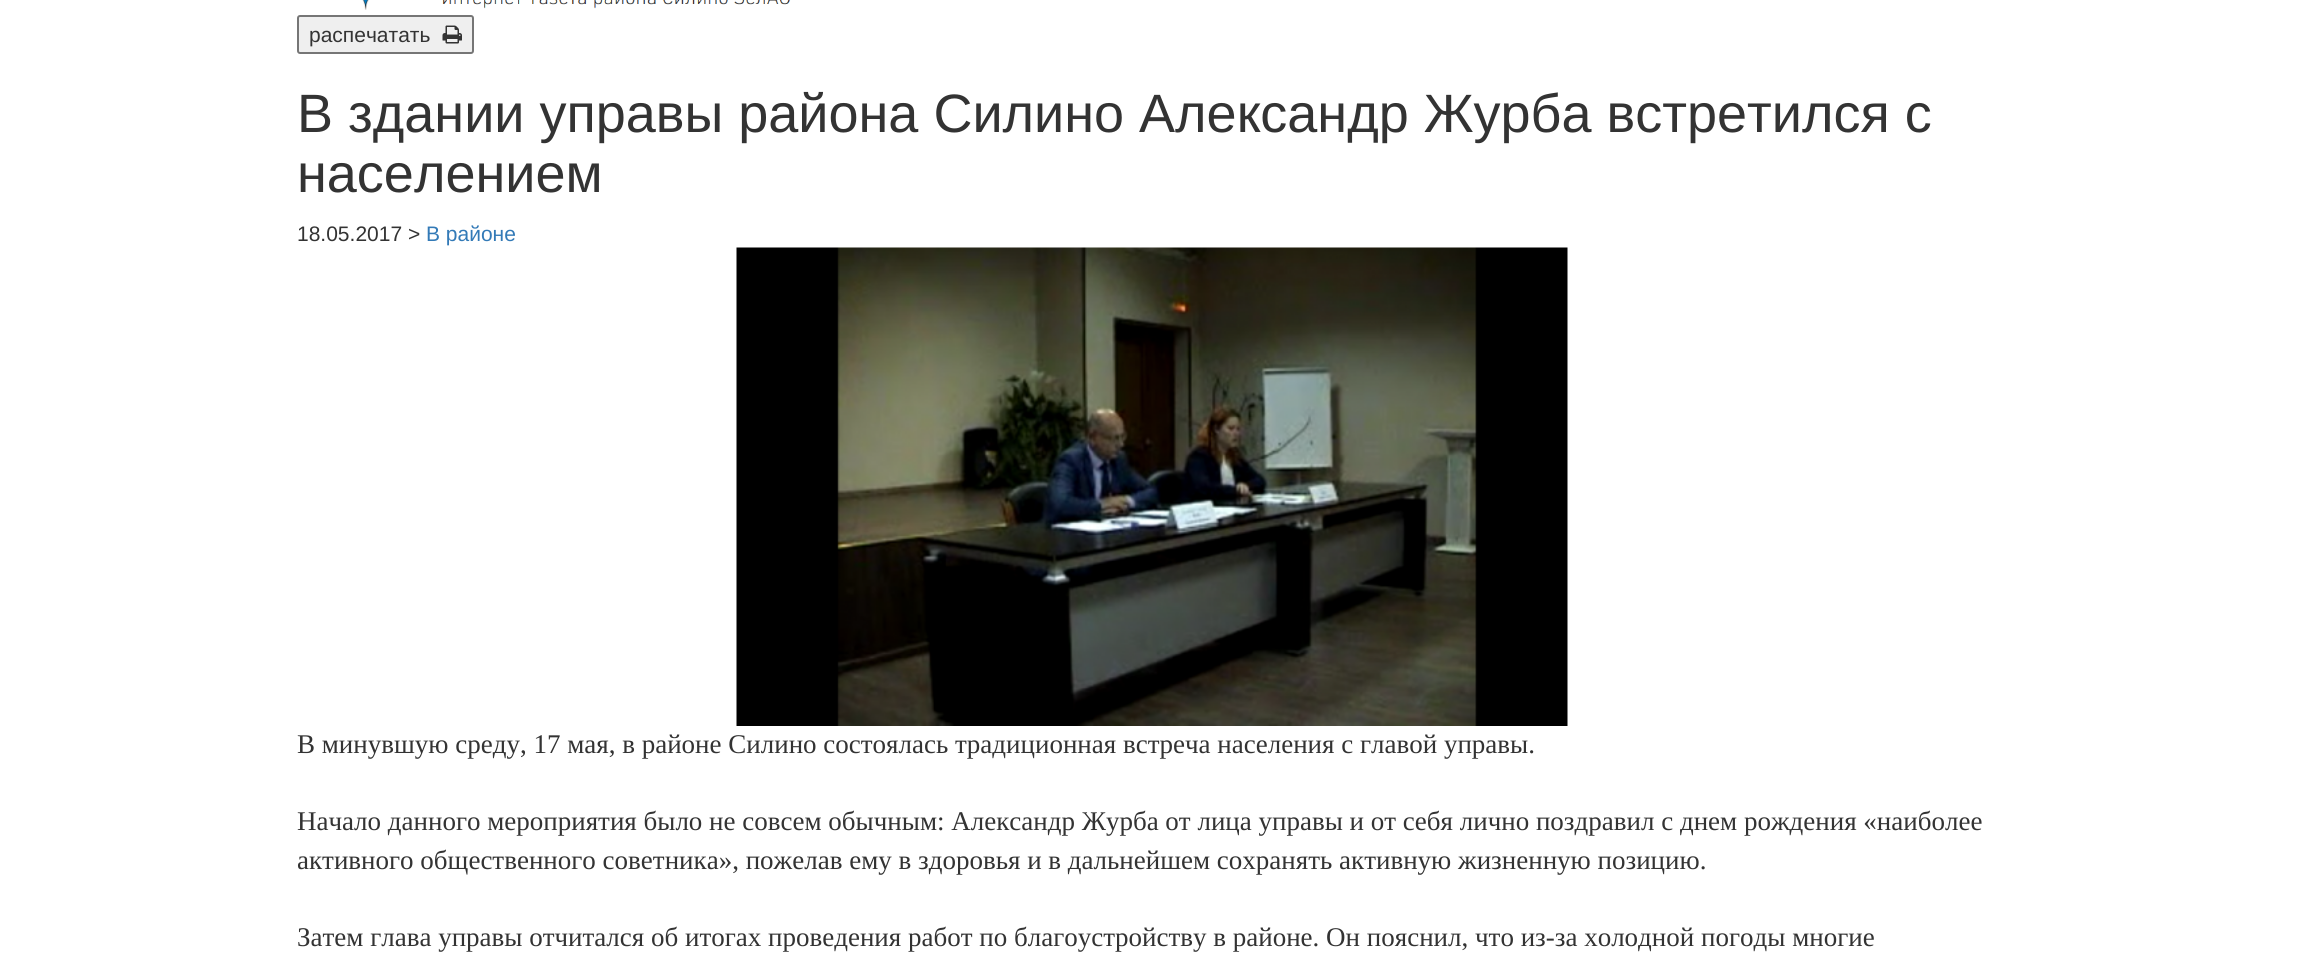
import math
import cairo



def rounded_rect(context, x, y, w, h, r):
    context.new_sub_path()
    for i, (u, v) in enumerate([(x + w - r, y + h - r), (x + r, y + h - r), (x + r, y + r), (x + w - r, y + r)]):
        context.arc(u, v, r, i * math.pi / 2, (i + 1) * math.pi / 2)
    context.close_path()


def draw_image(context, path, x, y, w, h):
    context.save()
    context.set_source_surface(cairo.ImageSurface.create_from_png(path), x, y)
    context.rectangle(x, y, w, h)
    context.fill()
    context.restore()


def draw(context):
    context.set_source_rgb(1, 1, 1)
    context.paint()
    draw_image(context, "images/1.png", 362, 0, 429, 10)
    context.set_source_rgb(239 / 255, 239 / 255, 239 / 255)
    rounded_rect(context, 298, 16, 175, 37, 2)
    context.fill_preserve()
    context.set_source_rgb(118 / 255, 118 / 255, 118 / 255)
    context.stroke()
    draw_image(context, "images/2.png", 442, 25, 20, 19)
    draw_image(context, "images/3.png", 736, 247, 832, 479)
    context.select_font_face("Liberation Sans")
    context.set_font_size(21)
    context.set_source_rgb(51 / 255, 51 / 255, 51 / 255)
    context.move_to(309, 42)
    context.show_text("распечатать")
    context.set_font_size(54)
    context.move_to(297, 132)
    context.show_text("В здании управы района Силино Александр Журба встретился с")
    context.move_to(297, 192)
    context.show_text("населением")
    context.set_font_size(21)
    context.move_to(297, 241)
    context.show_text("18.05.2017 >")
    context.set_source_rgb(51 / 255, 122 / 255, 183 / 255)
    context.move_to(426, 241)
    context.show_text("В районе")
    context.select_font_face("Liberation Serif")
    context.set_font_size(27)
    context.set_source_rgb(51 / 255, 51 / 255, 51 / 255)
    context.move_to(297, 753)
    context.show_text("В минувшую среду, 17 мая, в районе Силино состоялась традиционная встреча населения с главой управы.")
    context.move_to(297, 830)
    context.show_text("Начало данного мероприятия было не совсем обычным: Александр Журба от лица управы и от себя лично поздравил с днем рождения «наиболее")
    context.move_to(297, 869)
    context.show_text("активного общественного советника», пожелав ему в здоровья и в дальнейшем сохранять активную жизненную позицию.")
    context.move_to(297, 946)
    context.show_text("Затем глава управы отчитался об итогах проведения работ по благоустройству в районе. Он пояснил, что из-за холодной погоды многие")


surface = cairo.ImageSurface(cairo.Format.RGB24, 2304, 963)
context = cairo.Context(surface)
options = cairo.FontOptions()
options.set_hint_metrics(cairo.HintMetrics.OFF)
options.set_hint_style(cairo.HintStyle.NONE)
context.set_font_options(options)
context.set_miter_limit(4)
draw(context)
surface.write_to_png("out.png")
